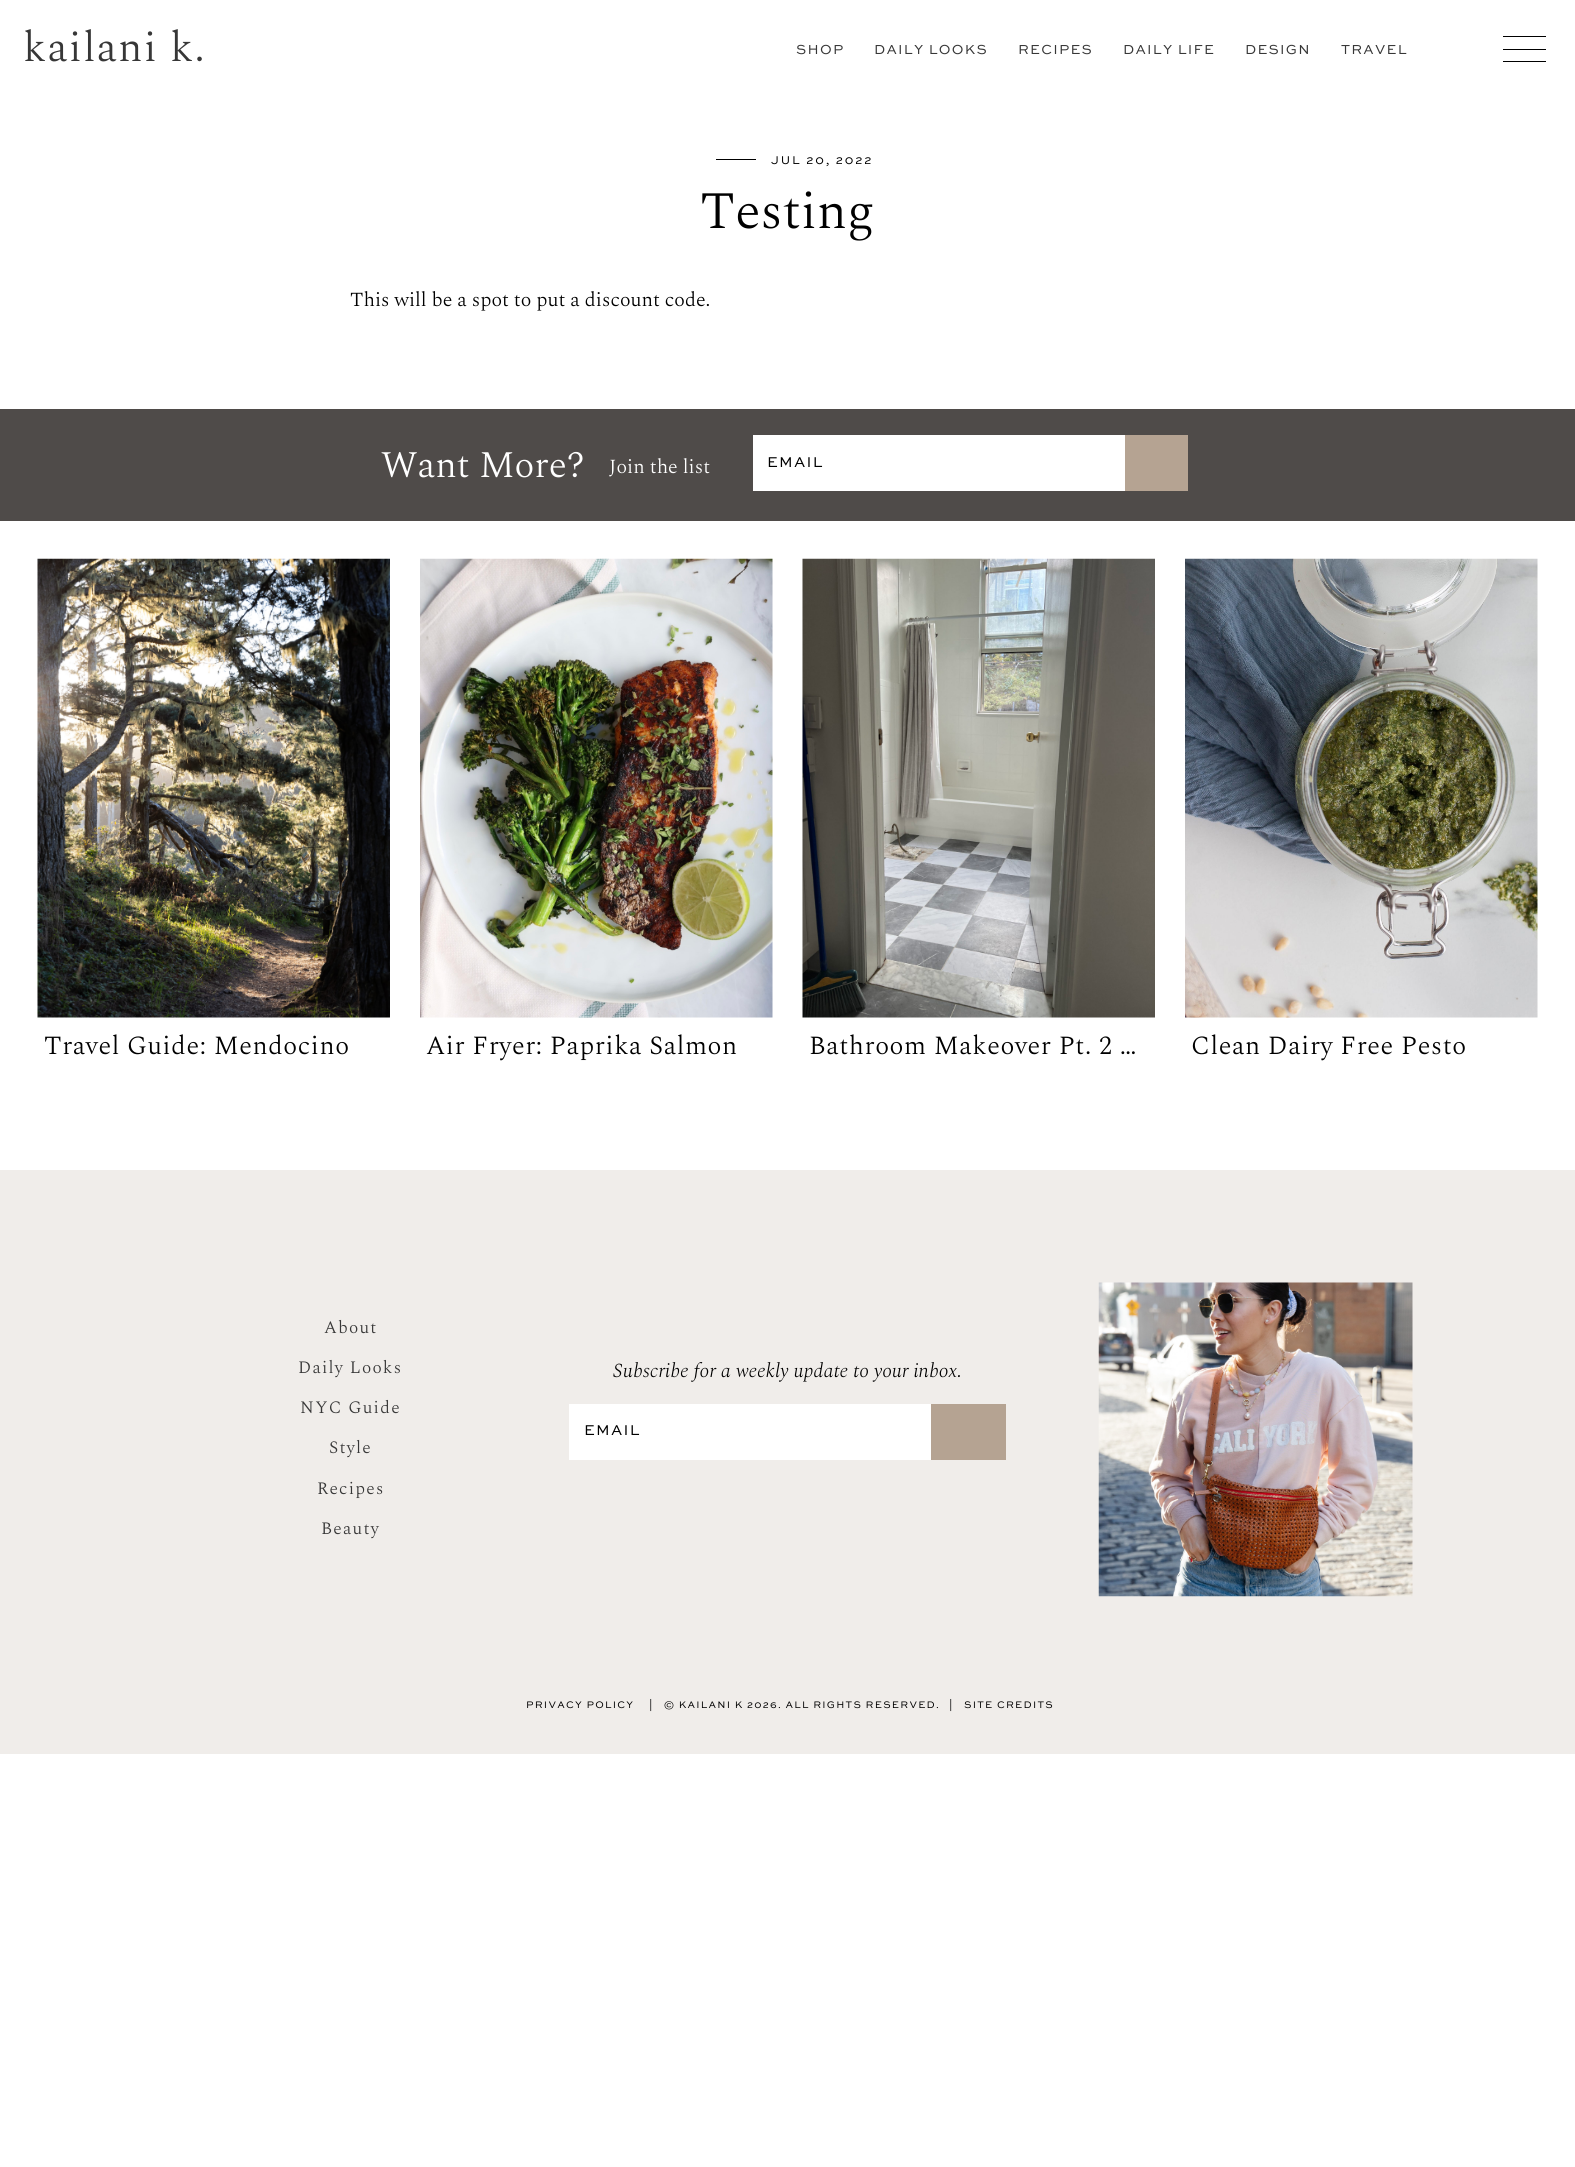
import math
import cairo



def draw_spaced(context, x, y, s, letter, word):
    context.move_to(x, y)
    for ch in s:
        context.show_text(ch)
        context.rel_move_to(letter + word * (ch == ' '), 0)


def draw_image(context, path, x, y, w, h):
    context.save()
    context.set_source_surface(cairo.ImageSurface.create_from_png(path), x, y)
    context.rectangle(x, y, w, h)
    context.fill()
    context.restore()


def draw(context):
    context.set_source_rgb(1, 1, 1)
    context.paint()
    context.set_source_rgb(0, 0, 0)
    context.rectangle(1503, 36, 43, 1)
    context.fill()
    context.rectangle(1503, 49, 43, 1)
    context.fill()
    context.rectangle(1503, 61, 43, 1)
    context.fill()
    context.rectangle(716, 159, 40, 1)
    context.fill()
    context.set_source_rgb(79 / 255, 75 / 255, 73 / 255)
    context.rectangle(0, 409, 1575, 112)
    context.fill()
    context.set_source_rgb(1, 1, 1)
    context.rectangle(753, 435, 372, 56)
    context.fill()
    context.set_source_rgb(181 / 255, 163 / 255, 146 / 255)
    context.rectangle(1125, 435, 63, 56)
    context.fill()
    draw_image(context, "images/1.png", 37, 558, 353, 460)
    draw_image(context, "images/2.png", 420, 558, 353, 460)
    draw_image(context, "images/3.png", 802, 558, 353, 460)
    draw_image(context, "images/4.png", 1185, 558, 353, 460)
    context.set_source_rgb(240 / 255, 237 / 255, 234 / 255)
    context.rectangle(0, 1170, 1575, 584)
    context.fill()
    context.set_source_rgb(1, 1, 1)
    context.rectangle(569, 1404, 362, 56)
    context.fill()
    context.set_source_rgb(181 / 255, 163 / 255, 146 / 255)
    context.rectangle(931, 1404, 75, 56)
    context.fill()
    draw_image(context, "images/5.png", 1098, 1282, 315, 315)
    context.select_font_face("Spectral Light")
    context.set_font_size(42.5)
    context.set_source_rgb(55 / 255, 55 / 255, 55 / 255)
    draw_spaced(context, 23, 61, "kailani k.", 1.25, 0)
    context.select_font_face("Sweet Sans")
    context.set_font_size(13.75)
    draw_spaced(context, 796, 54, "SHOP", 1.25, 0)
    draw_spaced(context, 874, 54, "DAILY LOOKS", 1.25, 0)
    draw_spaced(context, 1018, 54, "RECIPES", 1.25, 0)
    draw_spaced(context, 1123, 54, "DAILY LIFE", 1.25, 0)
    draw_spaced(context, 1245, 54, "DESIGN", 1.25, 0)
    draw_spaced(context, 1341, 54, "TRAVEL", 1.25, 0)
    context.set_font_size(11.9)
    context.set_source_rgb(0, 0, 0)
    draw_spaced(context, 771, 164, "JUL 20, 2022", 1.9, 0)
    context.select_font_face("Spectral Light")
    context.set_font_size(52.5)
    context.move_to(700, 228)
    context.show_text("Testing")
    context.set_font_size(20)
    context.move_to(350, 306)
    context.show_text("This will be a spot to put a discount code.")
    context.set_font_size(37.5)
    context.set_source_rgb(1, 1, 1)
    context.move_to(381, 477)
    context.show_text("Want More?")
    context.set_font_size(20)
    context.move_to(609, 473)
    context.show_text("Join the list")
    context.select_font_face("Sweet Sans")
    context.set_font_size(15)
    context.set_source_rgb(0, 0, 0)
    draw_spaced(context, 767, 467, "EMAIL", 1.25, 0)
    context.select_font_face("Spectral Light")
    context.set_font_size(26.25)
    draw_spaced(context, 44, 1054, "Travel Guide: Mendocino", 0.6, 0)
    draw_spaced(context, 426, 1054, "Air Fryer: Paprika Salmon", 0.6, 0)
    draw_spaced(context, 809, 1054, "Bathroom Makeover Pt. 2 …", 0.6, 0)
    draw_spaced(context, 1191, 1054, "Clean Dairy Free Pesto", 0.6, 0)
    context.set_font_size(17.5)
    context.set_source_rgb(55 / 255, 55 / 255, 55 / 255)
    draw_spaced(context, 324, 1333, "About", 1.25, 0)
    draw_spaced(context, 298, 1373, "Daily Looks", 1.25, 0)
    draw_spaced(context, 300, 1413, "NYC Guide", 1.25, 0)
    draw_spaced(context, 329, 1453, "Style", 1.25, 0)
    draw_spaced(context, 317, 1494, "Recipes", 1.25, 0)
    draw_spaced(context, 321, 1534, "Beauty", 1.25, 0)
    context.select_font_face("Spectral Light", cairo.FontSlant.ITALIC)
    context.set_font_size(20)
    context.set_source_rgb(0, 0, 0)
    context.move_to(613, 1377)
    context.show_text("Subscribe for a weekly update to your inbox.")
    context.select_font_face("Sweet Sans")
    context.set_font_size(15)
    draw_spaced(context, 584, 1435, "EMAIL", 1.25, 0)
    context.set_font_size(10)
    draw_spaced(context, 526, 1708, "PRIVACY POLICY", 1.25, 0)
    draw_spaced(context, 649, 1708, "|", 1.25, 0)
    draw_spaced(context, 664, 1708, "© KAILANI K 2026. ALL RIGHTS RESERVED.", 1.25, 0)
    draw_spaced(context, 949, 1708, "|", 1.25, 0)
    draw_spaced(context, 964, 1708, "SITE CREDITS", 1.25, 0)


surface = cairo.ImageSurface(cairo.Format.RGB24, 1575, 2167)
context = cairo.Context(surface)
options = cairo.FontOptions()
options.set_hint_metrics(cairo.HintMetrics.OFF)
options.set_hint_style(cairo.HintStyle.NONE)
context.set_font_options(options)
context.set_miter_limit(4)
draw(context)
surface.write_to_png("out.png")
